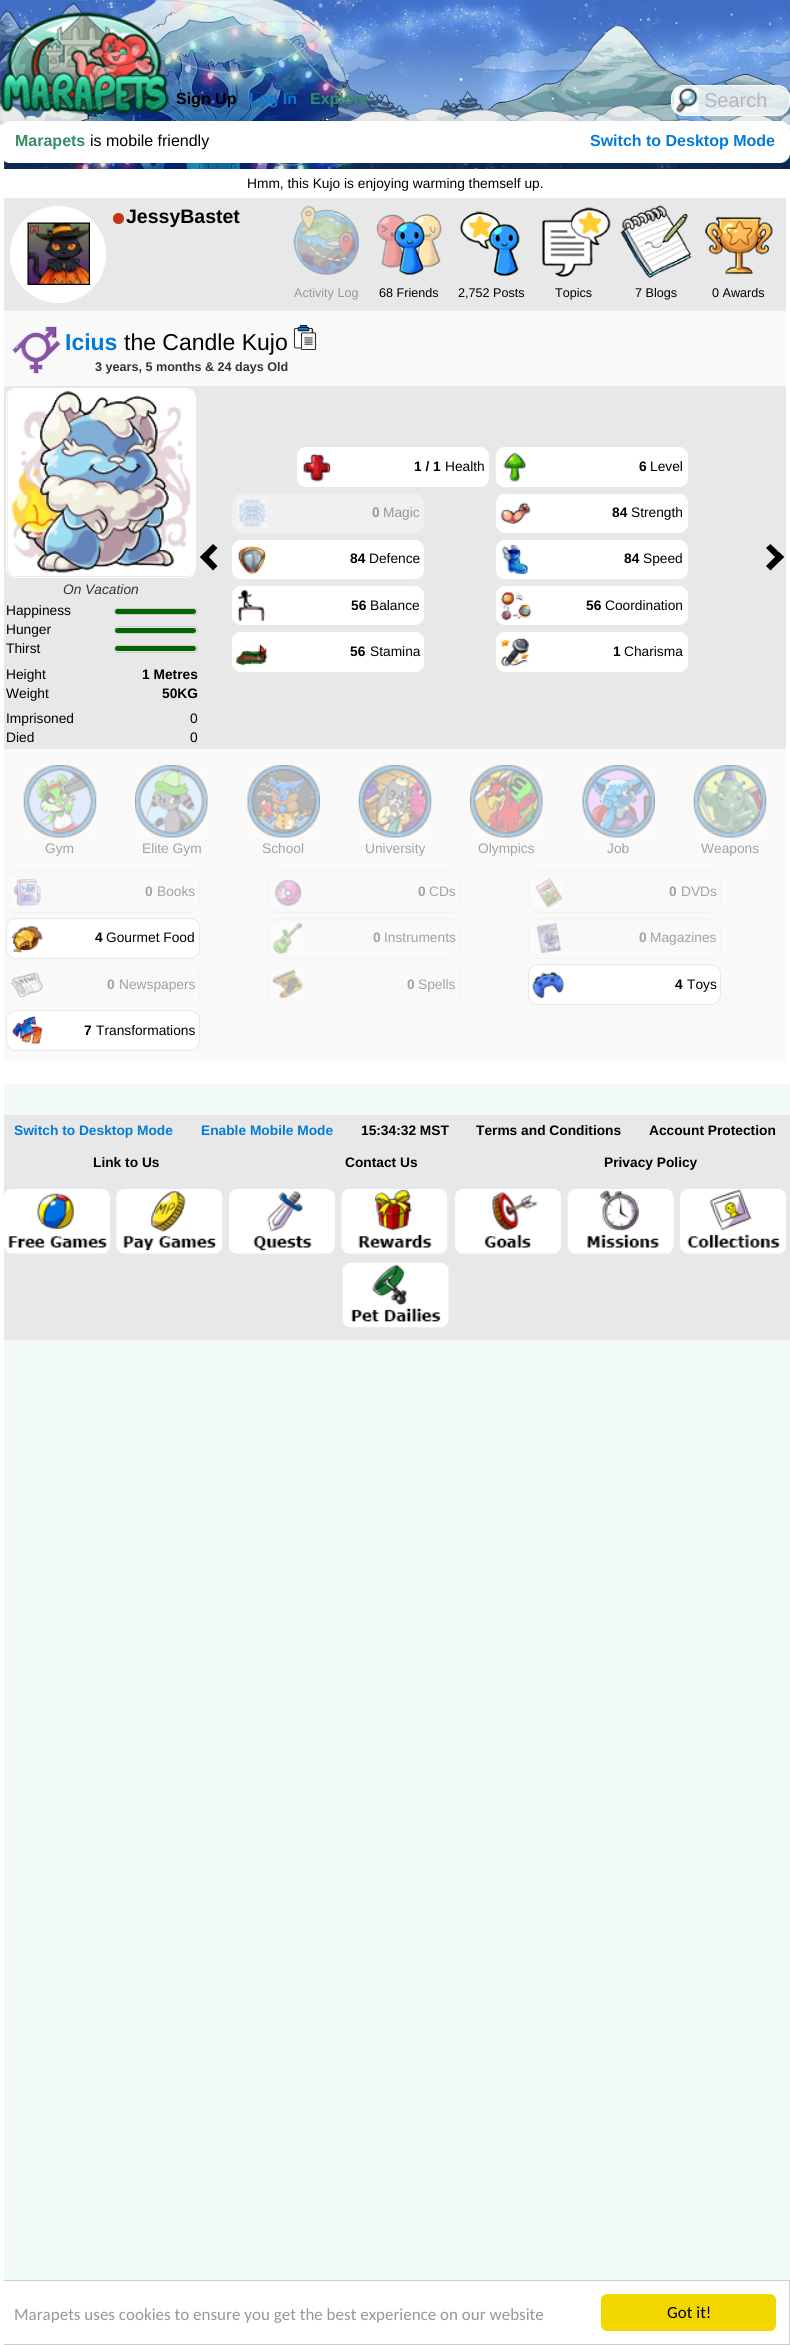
import math
import cairo



def rounded_rect(context, x, y, w, h, r):
    context.new_sub_path()
    for i, (u, v) in enumerate([(x + w - r, y + h - r), (x + r, y + h - r), (x + r, y + r), (x + w - r, y + r)]):
        context.arc(u, v, r, i * math.pi / 2, (i + 1) * math.pi / 2)
    context.close_path()


def draw_image(context, path, x, y, w, h):
    context.save()
    context.set_source_surface(cairo.ImageSurface.create_from_png(path), x, y)
    context.rectangle(x, y, w, h)
    context.fill()
    context.restore()


def draw(context):
    context.set_source_rgb(241 / 255, 250 / 255, 249 / 255)
    context.paint()
    draw_image(context, "images/1.png", 0, 0, 790, 169)
    context.set_source_rgb(241 / 255, 250 / 255, 249 / 255)
    context.rectangle(788, 125, 2, 3)
    context.fill()
    context.set_source_rgb(1, 1, 1)
    rounded_rect(context, 0.5, 121.5, 789, 41, 9.5)
    context.fill_preserve()
    context.set_line_width(1)
    context.stroke()
    context.rectangle(4, 2281, 785, 63)
    context.fill()
    context.rectangle(0.5, 2280.5, 789, 64)
    context.set_source_rgb(204 / 255, 204 / 255, 204 / 255)
    context.stroke()
    context.set_source_rgb(1, 1, 1)
    context.rectangle(0, 125, 4, 2220)
    context.fill()
    draw_image(context, "images/2.png", 0, 12, 169, 102)
    context.set_source_rgba(1, 1, 1, 0.8)
    rounded_rect(context, 671, 85, 119, 31, 13)
    context.fill()
    draw_image(context, "images/3.png", 673, 87, 26, 26)
    rounded_rect(context, 671.5, 85.5, 118, 30, 12.5)
    context.stroke()
    context.set_source_rgb(1, 1, 1)
    context.rectangle(4, 169, 786, 915)
    context.fill()
    context.set_source_rgb(249 / 255, 249 / 255, 250 / 255)
    context.rectangle(4, 311, 782, 750)
    context.fill()
    context.set_source_rgb(232 / 255, 232 / 255, 232 / 255)
    context.rectangle(4, 198, 782, 113)
    context.fill()
    context.set_source_rgb(1, 1, 1)
    rounded_rect(context, 10.5, 206.5, 95, 96, 47.5)
    context.fill_preserve()
    context.stroke()
    draw_image(context, "images/4.png", 27, 222, 63, 63)
    context.set_source_rgb(194 / 255, 54 / 255, 22 / 255)
    context.arc(118.5, 218.5, 5, 0, 2 * math.pi)
    context.fill_preserve()
    context.stroke()
    draw_image(context, "images/5.png", 293, 205, 66, 70)
    draw_image(context, "images/6.png", 376, 214, 66, 61)
    draw_image(context, "images/7.png", 460, 211, 60, 65)
    draw_image(context, "images/8.png", 541, 207, 70, 70)
    draw_image(context, "images/9.png", 620, 205, 73, 73)
    draw_image(context, "images/10.png", 705, 216, 68, 59)
    draw_image(context, "images/11.png", 12, 326, 49, 48)
    draw_image(context, "images/12.png", 293, 325, 24, 25)
    context.set_source_rgb(232 / 255, 232 / 255, 232 / 255)
    context.rectangle(4, 386, 782, 363)
    context.fill()
    rounded_rect(context, 6.5, 388.5, 189, 189, 9.5)
    context.set_source_rgb(1, 1, 1)
    context.stroke()
    draw_image(context, "images/13.png", 7, 389, 188, 187)
    rounded_rect(context, 114.5, 608.5, 83, 6, 3)
    context.set_source_rgb(204 / 255, 204 / 255, 204 / 255)
    context.stroke()
    context.set_source_rgb(0, 102 / 255, 0)
    rounded_rect(context, 115, 609, 81, 5, 2.5)
    context.fill()
    rounded_rect(context, 114.5, 626.5, 83, 7, 3.5)
    context.set_source_rgb(204 / 255, 204 / 255, 204 / 255)
    context.stroke()
    context.set_source_rgb(0, 102 / 255, 0)
    rounded_rect(context, 115, 628, 81, 5, 2.5)
    context.fill()
    rounded_rect(context, 114.5, 645.5, 83, 7, 3.5)
    context.set_source_rgb(204 / 255, 204 / 255, 204 / 255)
    context.stroke()
    context.set_source_rgb(0, 102 / 255, 0)
    rounded_rect(context, 115, 646, 81, 5, 2.5)
    context.fill()
    context.set_source_rgb(0, 0, 0)
    context.new_path()
    context.move_to(217.5, 566)
    context.line_to(213, 570.5)
    context.line_to(200, 557)
    context.line_to(204.5, 552.5)
    context.close_path()
    context.fill()
    context.new_path()
    context.move_to(217.5, 548)
    context.line_to(204.5, 561.5)
    context.line_to(200, 557)
    context.line_to(213, 544)
    context.close_path()
    context.fill()
    context.set_source_rgb(1, 1, 1)
    rounded_rect(context, 296.5, 446.5, 193, 41, 9.5)
    context.fill_preserve()
    context.set_source_rgb(232 / 255, 232 / 255, 232 / 255)
    context.stroke()
    draw_image(context, "images/14.png", 302, 453, 29, 29)
    context.set_source_rgb(1, 1, 1)
    rounded_rect(context, 495.5, 446.5, 193, 41, 9.5)
    context.fill_preserve()
    context.set_source_rgb(232 / 255, 232 / 255, 232 / 255)
    context.stroke()
    draw_image(context, "images/15.png", 503, 452, 24, 30)
    context.set_source_rgb(240 / 255, 240 / 255, 240 / 255)
    rounded_rect(context, 231.5, 493.5, 193, 40, 9.5)
    context.fill_preserve()
    context.set_source_rgb(232 / 255, 232 / 255, 232 / 255)
    context.stroke()
    draw_image(context, "images/16.png", 237, 498, 30, 30)
    context.set_source_rgb(1, 1, 1)
    rounded_rect(context, 495.5, 493.5, 193, 40, 9.5)
    context.fill_preserve()
    context.set_source_rgb(232 / 255, 232 / 255, 232 / 255)
    context.stroke()
    draw_image(context, "images/17.png", 501, 502, 30, 22)
    context.set_source_rgb(1, 1, 1)
    rounded_rect(context, 231.5, 539.5, 193, 40, 9.5)
    context.fill_preserve()
    context.set_source_rgb(232 / 255, 232 / 255, 232 / 255)
    context.stroke()
    draw_image(context, "images/18.png", 238, 546, 28, 28)
    context.set_source_rgb(1, 1, 1)
    rounded_rect(context, 495.5, 539.5, 193, 40, 9.5)
    context.fill_preserve()
    context.set_source_rgb(232 / 255, 232 / 255, 232 / 255)
    context.stroke()
    draw_image(context, "images/19.png", 502, 544, 27, 31)
    context.set_source_rgb(1, 1, 1)
    rounded_rect(context, 231.5, 585.5, 193, 40, 9.5)
    context.fill_preserve()
    context.set_source_rgb(232 / 255, 232 / 255, 232 / 255)
    context.stroke()
    draw_image(context, "images/20.png", 237, 590, 29, 32)
    context.set_source_rgb(1, 1, 1)
    rounded_rect(context, 495.5, 585.5, 193, 40, 9.5)
    context.fill_preserve()
    context.set_source_rgb(232 / 255, 232 / 255, 232 / 255)
    context.stroke()
    draw_image(context, "images/21.png", 501, 591, 31, 30)
    context.set_source_rgb(1, 1, 1)
    rounded_rect(context, 231.5, 631.5, 193, 41, 9.5)
    context.fill_preserve()
    context.set_source_rgb(232 / 255, 232 / 255, 232 / 255)
    context.stroke()
    draw_image(context, "images/22.png", 236, 643, 32, 23)
    context.set_source_rgb(1, 1, 1)
    rounded_rect(context, 495.5, 631.5, 193, 41, 9.5)
    context.fill_preserve()
    context.set_source_rgb(232 / 255, 232 / 255, 232 / 255)
    context.stroke()
    draw_image(context, "images/23.png", 501, 638, 28, 29)
    context.set_source_rgb(0, 0, 0)
    context.new_path()
    context.move_to(766, 548)
    context.line_to(770.5, 544)
    context.line_to(784, 557)
    context.line_to(779.5, 561.5)
    context.close_path()
    context.fill()
    context.new_path()
    context.move_to(766, 566)
    context.line_to(779.5, 552.5)
    context.line_to(784, 557)
    context.line_to(770.5, 570.5)
    context.close_path()
    context.fill()
    draw_image(context, "images/24.png", 23, 765, 74, 73)
    draw_image(context, "images/25.png", 135, 765, 73, 73)
    draw_image(context, "images/26.png", 247, 765, 73, 73)
    draw_image(context, "images/27.png", 358, 765, 74, 73)
    draw_image(context, "images/28.png", 470, 765, 73, 73)
    draw_image(context, "images/29.png", 582, 765, 73, 73)
    draw_image(context, "images/30.png", 693, 765, 74, 73)
    rounded_rect(context, 6.5, 871.5, 193, 41, 9.5)
    context.set_source_rgb(243 / 255, 243 / 255, 244 / 255)
    context.stroke()
    draw_image(context, "images/31.png", 13, 878, 28, 29)
    rounded_rect(context, 268.5, 871.5, 192, 41, 9.5)
    context.stroke()
    draw_image(context, "images/32.png", 275, 879, 27, 27)
    rounded_rect(context, 528.5, 871.5, 192, 41, 9.5)
    context.stroke()
    draw_image(context, "images/33.png", 535, 878, 28, 30)
    context.set_source_rgb(1, 1, 1)
    rounded_rect(context, 6.5, 918.5, 193, 40, 9.5)
    context.fill_preserve()
    context.set_source_rgb(232 / 255, 232 / 255, 232 / 255)
    context.stroke()
    draw_image(context, "images/34.png", 11, 926, 32, 27)
    rounded_rect(context, 268.5, 918.5, 192, 40, 9.5)
    context.set_source_rgb(243 / 255, 243 / 255, 244 / 255)
    context.stroke()
    draw_image(context, "images/35.png", 273, 923, 30, 31)
    rounded_rect(context, 528.5, 918.5, 192, 40, 9.5)
    context.stroke()
    draw_image(context, "images/36.png", 536, 923, 25, 30)
    rounded_rect(context, 6.5, 964.5, 193, 40, 9.5)
    context.stroke()
    draw_image(context, "images/37.png", 11, 972, 32, 25)
    rounded_rect(context, 268.5, 964.5, 192, 40, 9.5)
    context.stroke()
    draw_image(context, "images/38.png", 272, 969, 32, 29)
    context.set_source_rgb(1, 1, 1)
    rounded_rect(context, 528.5, 964.5, 192, 40, 9.5)
    context.fill_preserve()
    context.set_source_rgb(232 / 255, 232 / 255, 232 / 255)
    context.stroke()
    draw_image(context, "images/39.png", 532, 971, 32, 28)
    context.set_source_rgb(1, 1, 1)
    rounded_rect(context, 6.5, 1010.5, 193, 40, 9.5)
    context.fill_preserve()
    context.set_source_rgb(232 / 255, 232 / 255, 232 / 255)
    context.stroke()
    draw_image(context, "images/40.png", 12, 1016, 31, 29)
    context.rectangle(4, 1115, 786, 225)
    context.fill()
    draw_image(context, "images/41.png", 4, 1189, 106, 65)
    draw_image(context, "images/42.png", 116, 1189, 107, 65)
    draw_image(context, "images/43.png", 229, 1189, 106, 65)
    draw_image(context, "images/44.png", 341, 1189, 107, 65)
    draw_image(context, "images/45.png", 455, 1189, 106, 65)
    draw_image(context, "images/46.png", 567, 1189, 107, 65)
    draw_image(context, "images/47.png", 680, 1189, 106, 65)
    draw_image(context, "images/48.png", 342, 1262, 107, 66)
    context.set_source_rgb(241 / 255, 214 / 255, 0)
    rounded_rect(context, 601, 2294, 175, 37, 6)
    context.fill()
    context.select_font_face("Liberation Sans", cairo.FontSlant.NORMAL, cairo.FontWeight.BOLD)
    context.set_font_size(16)
    context.set_source_rgb(0, 0, 0)
    context.move_to(176, 104)
    context.show_text("Sign Up")
    context.set_source_rgb(3 / 255, 122 / 255, 214 / 255)
    context.move_to(249, 104)
    context.show_text("Log In")
    context.set_source_rgb(52 / 255, 141 / 255, 100 / 255)
    context.move_to(310, 104)
    context.show_text("Explore")
    context.select_font_face("Liberation Sans")
    context.set_font_size(20)
    context.set_source_rgb(181 / 255, 182 / 255, 184 / 255)
    context.move_to(704, 107)
    context.show_text("Search")
    context.select_font_face("Liberation Sans", cairo.FontSlant.NORMAL, cairo.FontWeight.BOLD)
    context.set_font_size(16)
    context.set_source_rgb(52 / 255, 141 / 255, 100 / 255)
    context.move_to(15, 146)
    context.show_text("Marapets")
    context.select_font_face("Liberation Sans")
    context.set_source_rgb(0, 0, 0)
    context.move_to(90, 146)
    context.show_text("is mobile friendly")
    context.select_font_face("Liberation Sans", cairo.FontSlant.NORMAL, cairo.FontWeight.BOLD)
    context.set_source_rgb(3 / 255, 122 / 255, 214 / 255)
    context.move_to(590, 146)
    context.show_text("Switch to Desktop Mode")
    context.select_font_face("Liberation Sans")
    context.set_font_size(13.75)
    context.set_source_rgb(0, 0, 0)
    context.move_to(247, 188)
    context.show_text("Hmm, this Kujo is enjoying warming themself up.")
    context.select_font_face("Liberation Sans", cairo.FontSlant.NORMAL, cairo.FontWeight.BOLD)
    context.set_font_size(19.5)
    context.move_to(126, 223)
    context.show_text("JessyBastet")
    context.select_font_face("Liberation Sans")
    context.set_font_size(12.6)
    context.set_source_rgb(151 / 255, 151 / 255, 151 / 255)
    context.move_to(294, 297)
    context.show_text("Activity Log")
    context.set_source_rgb(0, 0, 0)
    context.move_to(379, 297)
    context.show_text("68 Friends")
    context.move_to(458, 297)
    context.show_text("2,752 Posts")
    context.move_to(555, 297)
    context.show_text("Topics")
    context.move_to(635, 297)
    context.show_text("7 Blogs")
    context.move_to(712, 297)
    context.show_text("0 Awards")
    context.select_font_face("Liberation Sans", cairo.FontSlant.NORMAL, cairo.FontWeight.BOLD)
    context.set_font_size(23)
    context.set_source_rgb(3 / 255, 122 / 255, 214 / 255)
    context.move_to(65, 350)
    context.show_text("Icius")
    context.select_font_face("Liberation Sans")
    context.set_source_rgb(0, 0, 0)
    context.move_to(124, 350)
    context.show_text("the Candle Kujo")
    context.select_font_face("Liberation Sans", cairo.FontSlant.NORMAL, cairo.FontWeight.BOLD)
    context.set_font_size(12.6)
    context.set_source_rgb(51 / 255, 51 / 255, 51 / 255)
    context.move_to(95, 371)
    context.show_text("3 years, 5 months & 24 days Old")
    context.select_font_face("Liberation Sans", cairo.FontSlant.ITALIC)
    context.set_font_size(13.75)
    context.move_to(63, 594)
    context.show_text("On Vacation")
    context.select_font_face("Liberation Sans")
    context.set_source_rgb(0, 0, 0)
    context.move_to(6, 615)
    context.show_text("Happiness")
    context.move_to(6, 634)
    context.show_text("Hunger")
    context.move_to(6, 653)
    context.show_text("Thirst")
    context.move_to(6, 679)
    context.show_text("Height")
    context.select_font_face("Liberation Sans", cairo.FontSlant.NORMAL, cairo.FontWeight.BOLD)
    context.move_to(142, 679)
    context.show_text("1 Metres")
    context.select_font_face("Liberation Sans")
    context.move_to(6, 698)
    context.show_text("Weight")
    context.select_font_face("Liberation Sans", cairo.FontSlant.NORMAL, cairo.FontWeight.BOLD)
    context.move_to(162, 698)
    context.show_text("50KG")
    context.select_font_face("Liberation Sans")
    context.move_to(6, 723)
    context.show_text("Imprisoned")
    context.move_to(190, 723)
    context.show_text("0")
    context.move_to(6, 742)
    context.show_text("Died")
    context.move_to(190, 742)
    context.show_text("0")
    context.select_font_face("Liberation Sans", cairo.FontSlant.NORMAL, cairo.FontWeight.BOLD)
    context.move_to(414, 471)
    context.show_text("1 / 1")
    context.select_font_face("Liberation Sans")
    context.move_to(445, 471)
    context.show_text("Health")
    context.select_font_face("Liberation Sans", cairo.FontSlant.NORMAL, cairo.FontWeight.BOLD)
    context.move_to(639, 471)
    context.show_text("6")
    context.select_font_face("Liberation Sans")
    context.move_to(650, 471)
    context.show_text("Level")
    context.select_font_face("Liberation Sans", cairo.FontSlant.NORMAL, cairo.FontWeight.BOLD)
    context.set_source_rgb(151 / 255, 151 / 255, 151 / 255)
    context.move_to(372, 517)
    context.show_text("0")
    context.select_font_face("Liberation Sans")
    context.move_to(383, 517)
    context.show_text("Magic")
    context.select_font_face("Liberation Sans", cairo.FontSlant.NORMAL, cairo.FontWeight.BOLD)
    context.set_source_rgb(0, 0, 0)
    context.move_to(612, 517)
    context.show_text("84")
    context.select_font_face("Liberation Sans")
    context.move_to(631, 517)
    context.show_text("Strength")
    context.select_font_face("Liberation Sans", cairo.FontSlant.NORMAL, cairo.FontWeight.BOLD)
    context.move_to(350, 563)
    context.show_text("84")
    context.select_font_face("Liberation Sans")
    context.move_to(369, 563)
    context.show_text("Defence")
    context.select_font_face("Liberation Sans", cairo.FontSlant.NORMAL, cairo.FontWeight.BOLD)
    context.move_to(624, 563)
    context.show_text("84")
    context.select_font_face("Liberation Sans")
    context.move_to(643, 563)
    context.show_text("Speed")
    context.select_font_face("Liberation Sans", cairo.FontSlant.NORMAL, cairo.FontWeight.BOLD)
    context.move_to(351, 610)
    context.show_text("56")
    context.select_font_face("Liberation Sans")
    context.move_to(370, 610)
    context.show_text("Balance")
    context.select_font_face("Liberation Sans", cairo.FontSlant.NORMAL, cairo.FontWeight.BOLD)
    context.move_to(586, 610)
    context.show_text("56")
    context.select_font_face("Liberation Sans")
    context.move_to(605, 610)
    context.show_text("Coordination")
    context.select_font_face("Liberation Sans", cairo.FontSlant.NORMAL, cairo.FontWeight.BOLD)
    context.move_to(350, 656)
    context.show_text("56")
    context.select_font_face("Liberation Sans")
    context.move_to(370, 656)
    context.show_text("Stamina")
    context.select_font_face("Liberation Sans", cairo.FontSlant.NORMAL, cairo.FontWeight.BOLD)
    context.move_to(613, 656)
    context.show_text("1")
    context.select_font_face("Liberation Sans")
    context.move_to(624, 656)
    context.show_text("Charisma")
    context.set_source_rgb(162 / 255, 162 / 255, 163 / 255)
    context.move_to(45, 853)
    context.show_text("Gym")
    context.move_to(142, 853)
    context.show_text("Elite Gym")
    context.move_to(262, 853)
    context.show_text("School")
    context.move_to(365, 853)
    context.show_text("University")
    context.move_to(478, 853)
    context.show_text("Olympics")
    context.move_to(607, 853)
    context.show_text("Job")
    context.move_to(701, 853)
    context.show_text("Weapons")
    context.select_font_face("Liberation Sans", cairo.FontSlant.NORMAL, cairo.FontWeight.BOLD)
    context.move_to(145, 896)
    context.show_text("0")
    context.select_font_face("Liberation Sans")
    context.move_to(157, 896)
    context.show_text("Books")
    context.select_font_face("Liberation Sans", cairo.FontSlant.NORMAL, cairo.FontWeight.BOLD)
    context.move_to(418, 896)
    context.show_text("0")
    context.select_font_face("Liberation Sans")
    context.move_to(429, 896)
    context.show_text("CDs")
    context.select_font_face("Liberation Sans", cairo.FontSlant.NORMAL, cairo.FontWeight.BOLD)
    context.move_to(669, 896)
    context.show_text("0")
    context.select_font_face("Liberation Sans")
    context.move_to(681, 896)
    context.show_text("DVDs")
    context.select_font_face("Liberation Sans", cairo.FontSlant.NORMAL, cairo.FontWeight.BOLD)
    context.set_source_rgb(0, 0, 0)
    context.move_to(95, 942)
    context.show_text("4")
    context.select_font_face("Liberation Sans")
    context.move_to(106, 942)
    context.show_text("Gourmet Food")
    context.select_font_face("Liberation Sans", cairo.FontSlant.NORMAL, cairo.FontWeight.BOLD)
    context.set_source_rgb(162 / 255, 162 / 255, 163 / 255)
    context.move_to(373, 942)
    context.show_text("0")
    context.select_font_face("Liberation Sans")
    context.move_to(384, 942)
    context.show_text("Instruments")
    context.select_font_face("Liberation Sans", cairo.FontSlant.NORMAL, cairo.FontWeight.BOLD)
    context.move_to(639, 942)
    context.show_text("0")
    context.select_font_face("Liberation Sans")
    context.move_to(650, 942)
    context.show_text("Magazines")
    context.select_font_face("Liberation Sans", cairo.FontSlant.NORMAL, cairo.FontWeight.BOLD)
    context.move_to(107, 989)
    context.show_text("0")
    context.select_font_face("Liberation Sans")
    context.move_to(119, 989)
    context.show_text("Newspapers")
    context.select_font_face("Liberation Sans", cairo.FontSlant.NORMAL, cairo.FontWeight.BOLD)
    context.move_to(407, 989)
    context.show_text("0")
    context.select_font_face("Liberation Sans")
    context.move_to(418, 989)
    context.show_text("Spells")
    context.select_font_face("Liberation Sans", cairo.FontSlant.NORMAL, cairo.FontWeight.BOLD)
    context.set_source_rgb(0, 0, 0)
    context.move_to(675, 989)
    context.show_text("4")
    context.select_font_face("Liberation Sans")
    context.move_to(687, 989)
    context.show_text("Toys")
    context.select_font_face("Liberation Sans", cairo.FontSlant.NORMAL, cairo.FontWeight.BOLD)
    context.move_to(84, 1035)
    context.show_text("7")
    context.select_font_face("Liberation Sans")
    context.move_to(96, 1035)
    context.show_text("Transformations")
    context.select_font_face("Liberation Sans", cairo.FontSlant.NORMAL, cairo.FontWeight.BOLD)
    context.set_source_rgb(3 / 255, 122 / 255, 214 / 255)
    context.move_to(14, 1135)
    context.show_text("Switch to Desktop Mode")
    context.move_to(201, 1135)
    context.show_text("Enable Mobile Mode")
    context.set_source_rgb(0, 0, 0)
    context.move_to(361, 1135)
    context.show_text("15:34:32 MST")
    context.move_to(476, 1135)
    context.show_text("Terms and Conditions")
    context.move_to(649, 1135)
    context.show_text("Account Protection")
    context.move_to(93, 1167)
    context.show_text("Link to Us")
    context.move_to(345, 1167)
    context.show_text("Contact Us")
    context.move_to(604, 1167)
    context.show_text("Privacy Policy")
    context.select_font_face("Carlito")
    context.set_font_size(17)
    context.set_source_rgb(151 / 255, 151 / 255, 151 / 255)
    context.move_to(14, 2320)
    context.show_text("Marapets uses cookies to ensure you get the best experience on our website")
    context.set_source_rgb(0, 0, 0)
    context.move_to(667, 2318)
    context.show_text("Got it!")


surface = cairo.ImageSurface(cairo.Format.RGB24, 790, 2345)
context = cairo.Context(surface)
options = cairo.FontOptions()
options.set_hint_metrics(cairo.HintMetrics.OFF)
options.set_hint_style(cairo.HintStyle.NONE)
context.set_font_options(options)
context.set_miter_limit(4)
draw(context)
surface.write_to_png("out.png")
